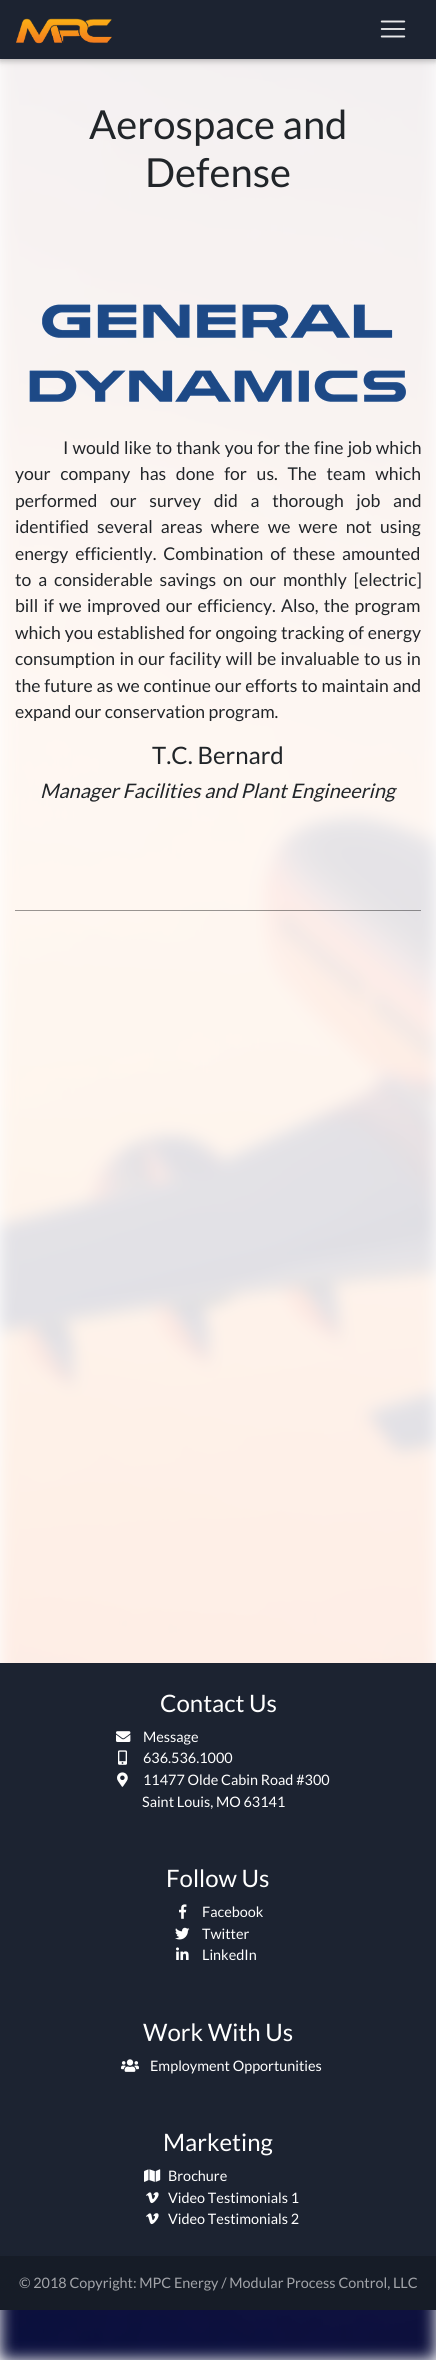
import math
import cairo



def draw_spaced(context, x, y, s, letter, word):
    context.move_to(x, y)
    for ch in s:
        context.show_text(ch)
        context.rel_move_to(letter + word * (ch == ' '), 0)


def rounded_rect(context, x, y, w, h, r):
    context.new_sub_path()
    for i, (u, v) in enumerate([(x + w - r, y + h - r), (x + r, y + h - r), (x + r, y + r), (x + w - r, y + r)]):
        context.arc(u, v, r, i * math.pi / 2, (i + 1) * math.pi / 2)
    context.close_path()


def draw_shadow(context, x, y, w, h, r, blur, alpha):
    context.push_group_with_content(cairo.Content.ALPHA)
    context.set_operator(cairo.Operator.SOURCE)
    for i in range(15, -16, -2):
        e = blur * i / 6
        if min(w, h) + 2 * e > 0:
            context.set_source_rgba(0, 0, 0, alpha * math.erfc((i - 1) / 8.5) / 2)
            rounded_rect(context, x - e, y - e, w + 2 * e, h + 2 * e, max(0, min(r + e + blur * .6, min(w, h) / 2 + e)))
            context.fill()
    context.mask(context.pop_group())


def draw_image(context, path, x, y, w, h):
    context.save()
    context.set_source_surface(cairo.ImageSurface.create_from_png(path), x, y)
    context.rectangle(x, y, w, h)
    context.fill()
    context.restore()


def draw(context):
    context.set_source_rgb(253 / 255, 253 / 255, 253 / 255)
    context.paint()
    draw_image(context, "images/3.png", 0, 59, 436, 2301)
    context.set_source_rgba(1, 1, 1, 0.87)
    context.rectangle(0, 59, 436, 1604)
    context.fill()
    context.set_source_rgb(0, 0, 0)
    draw_shadow(context, 0, 2, 436, 59, 0, 5, 0.12)
    draw_shadow(context, 0, 2, 436, 59, 0, 2.5, 0.16)
    context.set_source_rgb(28 / 255, 35 / 255, 49 / 255)
    context.rectangle(0, 0, 436, 59)
    context.fill()
    draw_image(context, "images/1.png", 16, 18, 96, 26)
    draw_image(context, "images/2.png", 380, 20, 26, 18)
    context.set_source_rgba(0, 0, 0, 0.4)
    context.rectangle(15, 910, 406, 1)
    context.fill()
    draw_image(context, "images/4.png", 29, 304, 377, 98)
    context.set_source_rgb(28 / 255, 35 / 255, 49 / 255)
    context.rectangle(0, 1663, 436, 593)
    context.fill()
    draw_image(context, "images/5.png", 116, 1731, 15, 11)
    draw_image(context, "images/6.png", 118, 1750, 9, 15)
    draw_image(context, "images/7.png", 117, 1772, 11, 15)
    draw_image(context, "images/8.png", 179, 1904, 8, 15)
    draw_image(context, "images/9.png", 175, 1927, 15, 13)
    draw_image(context, "images/10.png", 176, 1947, 13, 13)
    draw_image(context, "images/11.png", 121, 2059, 18, 13)
    draw_image(context, "images/12.png", 144, 2169, 17, 13)
    draw_image(context, "images/13.png", 146, 2192, 13, 12)
    draw_image(context, "images/13.png", 146, 2213, 13, 12)
    context.set_source_rgb(22 / 255, 28 / 255, 39 / 255)
    context.rectangle(0, 2256, 436, 54)
    context.fill()
    context.select_font_face("Lato")
    context.set_font_size(40)
    context.set_source_rgb(33 / 255, 37 / 255, 41 / 255)
    context.move_to(89, 139)
    context.show_text("Aerospace and")
    context.move_to(145, 187)
    context.show_text("Defense")
    context.set_font_size(17.6)
    draw_spaced(context, 63, 454, "I would like to thank you for the fine job which", 0, 0.75)
    draw_spaced(context, 15, 480, "your company has done for us. The team which", 0, 6.25)
    draw_spaced(context, 15, 507, "performed our survey did a thorough job and", 0, 9.25)
    draw_spaced(context, 15, 533, "identified several areas where we were not using", 0, 4.75)
    draw_spaced(context, 15, 560, "energy efficiently. Combination of these amounted", 0, 3.5)
    draw_spaced(context, 15, 586, "to a considerable savings on our monthly [electric]", 0, 3.5)
    draw_spaced(context, 15, 612, "bill if we improved our efficiency. Also, the program", 0, 1.75)
    draw_spaced(context, 15, 639, "which you established for ongoing tracking of energy", 0, 0.5)
    draw_spaced(context, 15, 665, "consumption in our facility will be invaluable to us in", 0, 1)
    draw_spaced(context, 15, 692, "the future as we continue our efforts to maintain and", 0, 0.4)
    context.move_to(15, 718)
    context.show_text("expand our conservation program.")
    context.set_font_size(24)
    context.move_to(152, 764)
    context.show_text("T.C. Bernard")
    context.select_font_face("Lato", cairo.FontSlant.ITALIC)
    context.set_font_size(20)
    context.move_to(40, 798)
    context.show_text("Manager Facilities and Plant Engineering")
    context.select_font_face("Lato")
    context.set_font_size(24)
    context.set_source_rgb(1, 1, 1)
    context.move_to(160, 1712)
    context.show_text("Contact Us")
    context.set_font_size(14.4)
    context.move_to(143, 1742)
    context.show_text("Message")
    context.move_to(143, 1763)
    context.show_text("636.536.1000")
    context.move_to(143, 1785)
    context.show_text("11477 Olde Cabin Road #300")
    context.move_to(142, 1807)
    context.show_text("Saint Louis, MO 63141")
    context.set_font_size(24)
    context.move_to(166, 1887)
    context.show_text("Follow Us")
    context.set_font_size(14.4)
    context.move_to(202, 1917)
    context.show_text("Facebook")
    context.move_to(202, 1939)
    context.show_text("Twitter")
    context.move_to(202, 1960)
    context.show_text("LinkedIn")
    context.set_font_size(24)
    context.move_to(143, 2041)
    context.show_text("Work With Us")
    context.set_font_size(14.4)
    context.move_to(150, 2071)
    context.show_text("Employment Opportunities")
    context.set_font_size(24)
    context.move_to(163, 2151)
    context.show_text("Marketing")
    context.set_font_size(14.4)
    context.move_to(168, 2181)
    context.show_text("Brochure")
    context.move_to(168, 2203)
    context.show_text("Video Testimonials 1")
    context.move_to(168, 2224)
    context.show_text("Video Testimonials 2")
    context.set_source_rgb(162 / 255, 164 / 255, 169 / 255)
    context.move_to(19, 2288)
    context.show_text("© 2018 Copyright: MPC Energy / Modular Process Control, LLC")


surface = cairo.ImageSurface(cairo.Format.RGB24, 436, 2360)
context = cairo.Context(surface)
options = cairo.FontOptions()
options.set_hint_metrics(cairo.HintMetrics.OFF)
options.set_hint_style(cairo.HintStyle.NONE)
context.set_font_options(options)
context.set_miter_limit(4)
draw(context)
surface.write_to_png("out.png")
